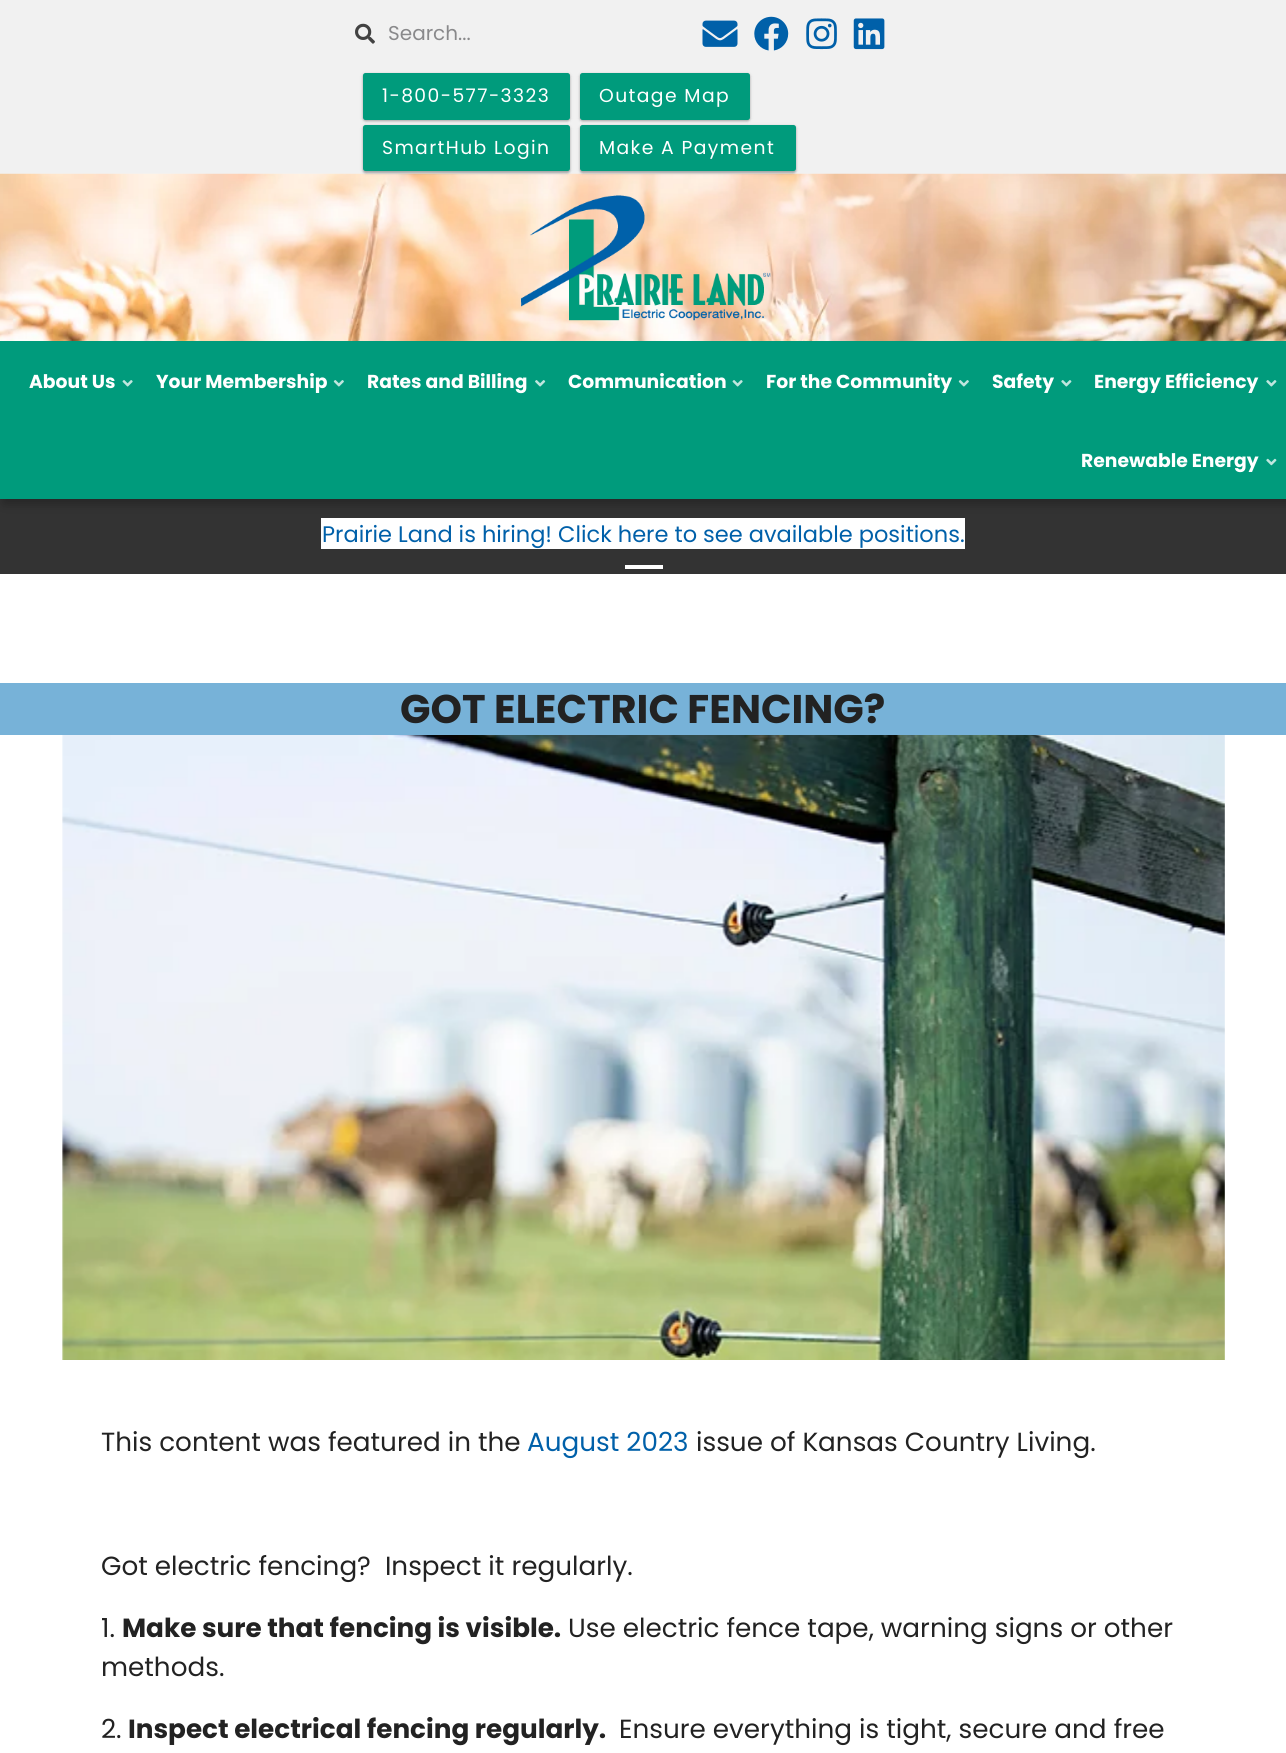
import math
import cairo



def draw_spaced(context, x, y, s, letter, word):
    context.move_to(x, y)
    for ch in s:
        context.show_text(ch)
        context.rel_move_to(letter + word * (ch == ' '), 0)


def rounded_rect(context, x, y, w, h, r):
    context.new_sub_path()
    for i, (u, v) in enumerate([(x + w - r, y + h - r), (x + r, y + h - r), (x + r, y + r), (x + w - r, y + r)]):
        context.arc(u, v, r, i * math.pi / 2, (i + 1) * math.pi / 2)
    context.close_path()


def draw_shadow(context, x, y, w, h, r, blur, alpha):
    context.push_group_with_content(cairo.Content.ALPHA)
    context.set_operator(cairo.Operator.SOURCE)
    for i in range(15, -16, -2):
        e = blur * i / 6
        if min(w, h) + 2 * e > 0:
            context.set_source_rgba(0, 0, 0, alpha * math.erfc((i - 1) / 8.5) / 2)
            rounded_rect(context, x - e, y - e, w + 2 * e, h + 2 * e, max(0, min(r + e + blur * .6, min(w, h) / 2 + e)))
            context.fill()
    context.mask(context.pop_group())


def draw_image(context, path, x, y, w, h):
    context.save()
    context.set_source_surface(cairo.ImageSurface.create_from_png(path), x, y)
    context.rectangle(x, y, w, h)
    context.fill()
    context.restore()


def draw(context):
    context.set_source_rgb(1, 1, 1)
    context.paint()
    context.set_source_rgb(51 / 255, 51 / 255, 51 / 255)
    context.rectangle(0, 499, 1286, 75)
    context.fill()
    context.set_source_rgb(1, 1, 1)
    context.rectangle(321, 518, 644, 31)
    context.fill()
    context.set_source_rgb(0, 0, 0)
    draw_shadow(context, 4, 4, 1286, 499, 0, 6, 0.3)
    context.set_source_rgb(241 / 255, 241 / 255, 241 / 255)
    context.rectangle(0, 0, 1286, 174)
    context.fill()
    draw_image(context, "images/1.png", 355, 23, 20, 21)
    draw_image(context, "images/2.png", 702, 20, 36, 27)
    draw_image(context, "images/3.png", 754, 16, 35, 35)
    draw_image(context, "images/4.png", 806, 18, 31, 32)
    draw_image(context, "images/5.png", 853, 18, 32, 32)
    context.set_source_rgb(0, 0, 0)
    draw_shadow(context, 363, 74, 207, 47, 2.5, 1, 0.24)
    draw_shadow(context, 363, 74, 207, 47, 2.5, 2, 0.12)
    context.set_source_rgb(0, 155 / 255, 124 / 255)
    rounded_rect(context, 363, 73, 207, 47, 2.5)
    context.fill()
    context.set_source_rgb(0, 0, 0)
    draw_shadow(context, 580, 74, 170, 47, 2.5, 1, 0.24)
    draw_shadow(context, 580, 74, 170, 47, 2.5, 2, 0.12)
    context.set_source_rgb(0, 155 / 255, 124 / 255)
    rounded_rect(context, 580, 73, 170, 47, 2.5)
    context.fill()
    draw_image(context, "images/6.png", 0, 173, 1286, 168)
    context.set_source_rgb(0, 0, 0)
    draw_shadow(context, 363, 126, 207, 47, 2.5, 1, 0.24)
    draw_shadow(context, 363, 126, 207, 47, 2.5, 2, 0.12)
    context.set_source_rgb(0, 155 / 255, 124 / 255)
    rounded_rect(context, 363, 125, 207, 46, 2.5)
    context.fill()
    context.set_source_rgb(0, 0, 0)
    draw_shadow(context, 580, 126, 216, 47, 2.5, 1, 0.24)
    draw_shadow(context, 580, 126, 216, 47, 2.5, 2, 0.12)
    context.set_source_rgb(0, 155 / 255, 124 / 255)
    rounded_rect(context, 580, 125, 216, 46, 2.5)
    context.fill()
    draw_image(context, "images/7.png", 521, 195, 250, 126)
    context.rectangle(0, 341, 1286, 158)
    context.fill()
    draw_image(context, "images/8.png", 122, 380, 11, 7)
    draw_image(context, "images/9.png", 333, 380, 11, 7)
    draw_image(context, "images/10.png", 535, 380, 11, 7)
    draw_image(context, "images/8.png", 732, 380, 11, 7)
    draw_image(context, "images/9.png", 958, 380, 11, 7)
    draw_image(context, "images/11.png", 1061, 380, 11, 7)
    draw_image(context, "images/11.png", 1266, 380, 11, 7)
    draw_image(context, "images/12.png", 1266, 458, 11, 8)
    context.set_source_rgb(1, 1, 1)
    context.rectangle(625, 565, 38, 4)
    context.fill()
    context.set_source_rgb(119 / 255, 178 / 255, 216 / 255)
    context.rectangle(0, 683, 1286, 52)
    context.fill()
    draw_image(context, "images/13.png", 62, 735, 1163, 625)
    context.select_font_face("Poppins")
    context.set_font_size(20)
    context.set_source_rgb(137 / 255, 137 / 255, 139 / 255)
    context.move_to(388, 40)
    context.show_text("Search...")
    context.set_font_size(18.75)
    context.set_source_rgb(1, 1, 1)
    draw_spaced(context, 382, 102, "1-800-577-3323", 1.4, 0)
    draw_spaced(context, 599, 102, "Outage Map", 1.4, 0)
    draw_spaced(context, 382, 154, "SmartHub Login", 1.4, 0)
    draw_spaced(context, 599, 154, "Make A Payment", 1.4, 0)
    context.select_font_face("Poppins", cairo.FontSlant.NORMAL, cairo.FontWeight.BOLD)
    context.move_to(29, 388)
    context.show_text("About Us")
    context.move_to(156, 388)
    context.show_text("Your Membership")
    context.move_to(367, 388)
    context.show_text("Rates and Billing")
    context.move_to(568, 388)
    context.show_text("Communication")
    context.move_to(766, 388)
    context.show_text("For the Community")
    context.move_to(992, 388)
    context.show_text("Safety")
    context.move_to(1094, 388)
    context.show_text("Energy Efficiency")
    context.move_to(1081, 467)
    context.show_text("Renewable Energy")
    context.select_font_face("Poppins")
    context.set_font_size(22.5)
    context.set_source_rgb(0, 96 / 255, 169 / 255)
    context.move_to(322, 542)
    context.show_text("Prairie Land is hiring! Click here to see available positions.")
    context.select_font_face("Poppins", cairo.FontSlant.NORMAL, cairo.FontWeight.BOLD)
    context.set_font_size(40)
    context.set_source_rgb(34 / 255, 34 / 255, 34 / 255)
    context.move_to(400, 723)
    context.show_text("GOT ELECTRIC FENCING?")
    context.select_font_face("Poppins")
    context.set_font_size(26.25)
    context.move_to(101, 1451)
    context.show_text("This content was featured in the")
    context.set_source_rgb(0, 96 / 255, 169 / 255)
    context.move_to(527, 1451)
    context.show_text("August 2023")
    context.set_source_rgb(34 / 255, 34 / 255, 34 / 255)
    context.move_to(696, 1451)
    context.show_text("issue of Kansas Country Living.")
    context.move_to(101, 1575)
    context.show_text("Got electric fencing?  Inspect it regularly.")
    context.move_to(101, 1637)
    context.show_text("1.")
    context.select_font_face("Poppins", cairo.FontSlant.NORMAL, cairo.FontWeight.BOLD)
    context.move_to(122, 1637)
    context.show_text("Make sure that fencing is visible.")
    context.select_font_face("Poppins")
    context.move_to(568, 1637)
    context.show_text("Use electric fence tape, warning signs or other")
    context.move_to(101, 1676)
    context.show_text("methods.")
    context.move_to(101, 1738)
    context.show_text("2.")
    context.select_font_face("Poppins", cairo.FontSlant.NORMAL, cairo.FontWeight.BOLD)
    context.move_to(128, 1738)
    context.show_text("Inspect electrical fencing regularly.")
    context.select_font_face("Poppins")
    context.move_to(619, 1738)
    context.show_text("Ensure everything is tight, secure and free")


surface = cairo.ImageSurface(cairo.Format.RGB24, 1286, 1753)
context = cairo.Context(surface)
options = cairo.FontOptions()
options.set_hint_metrics(cairo.HintMetrics.OFF)
options.set_hint_style(cairo.HintStyle.NONE)
context.set_font_options(options)
context.set_miter_limit(4)
draw(context)
surface.write_to_png("out.png")
